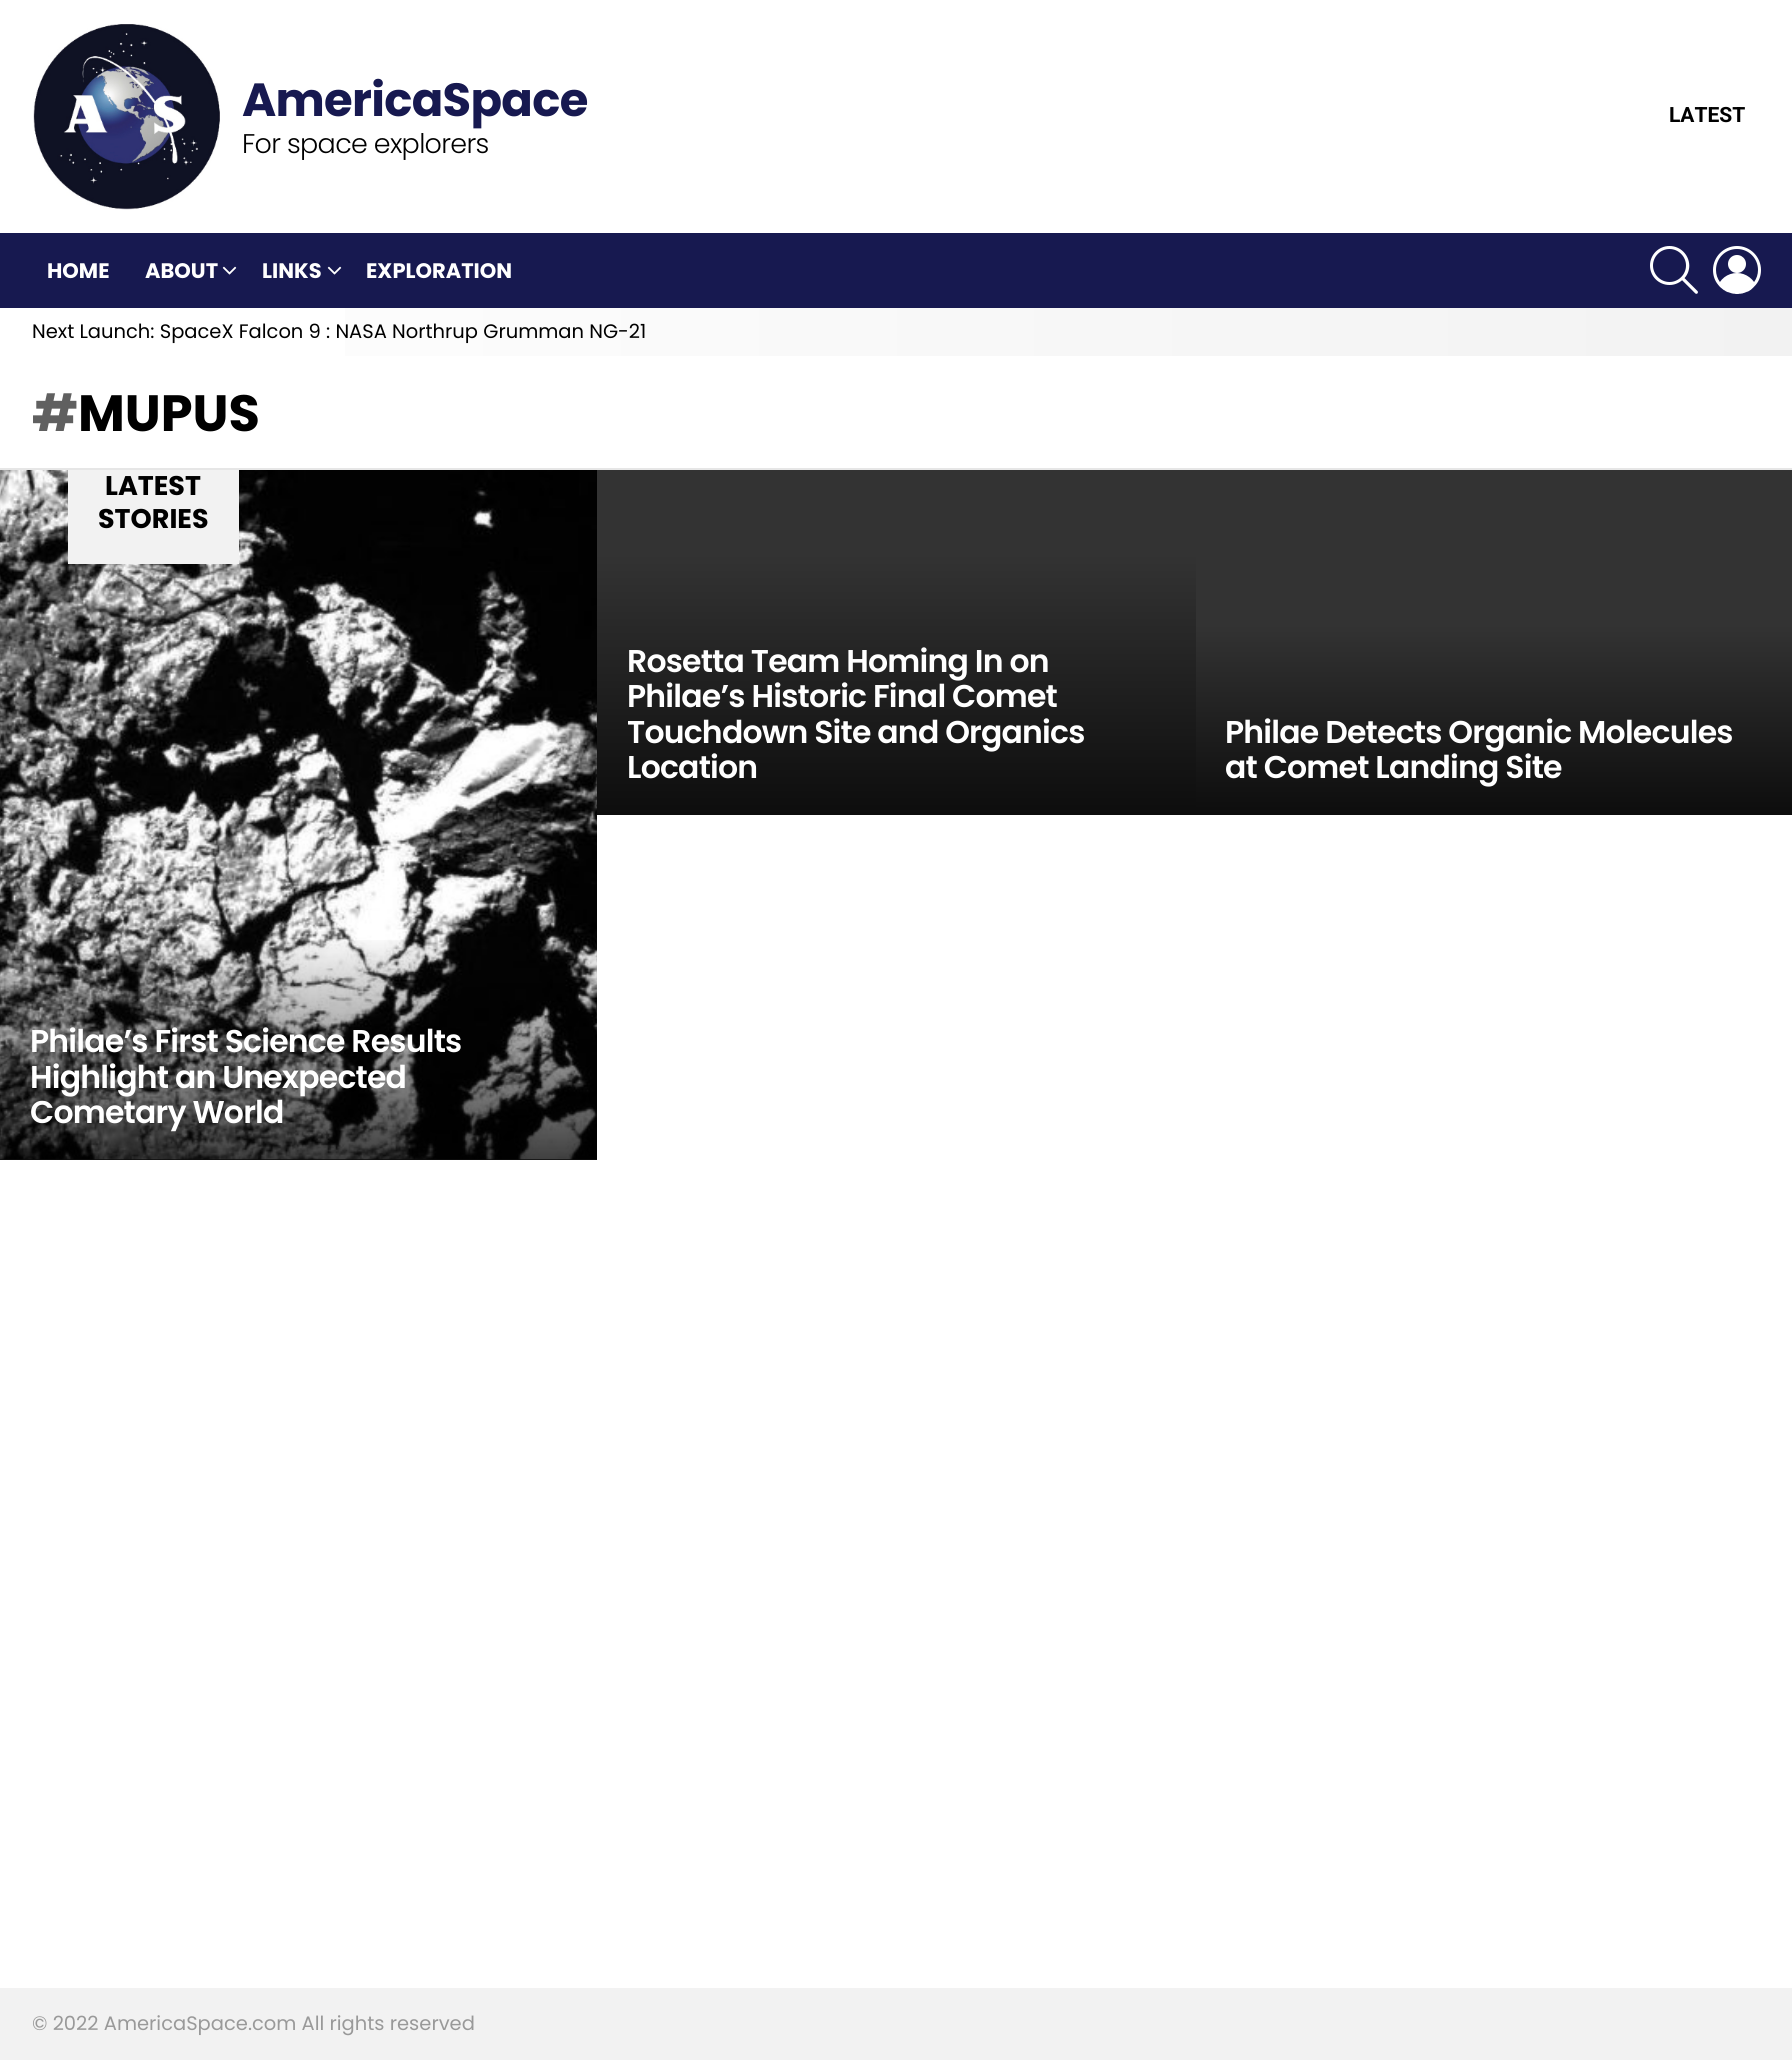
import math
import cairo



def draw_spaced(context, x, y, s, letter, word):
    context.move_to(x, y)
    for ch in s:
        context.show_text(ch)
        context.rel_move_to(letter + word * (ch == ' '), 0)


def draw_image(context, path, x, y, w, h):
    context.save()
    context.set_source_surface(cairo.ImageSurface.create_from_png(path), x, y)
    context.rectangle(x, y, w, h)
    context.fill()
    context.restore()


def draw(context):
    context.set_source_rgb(1, 1, 1)
    context.paint()
    draw_image(context, "images/1.png", 33, 24, 187, 186)
    context.set_source_rgb(23 / 255, 25 / 255, 80 / 255)
    context.rectangle(0, 233, 1792, 75)
    context.fill()
    draw_image(context, "images/2.png", 222, 266, 15, 9)
    draw_image(context, "images/2.png", 327, 266, 15, 9)
    draw_image(context, "images/3.png", 1650, 246, 48, 48)
    draw_image(context, "images/4.png", 1713, 246, 48, 48)
    gradient = cairo.LinearGradient(0, 332, 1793, 331)
    gradient.add_color_stop_rgba(0, 1, 1, 1, 1)
    gradient.add_color_stop_rgba(1, 242 / 255, 242 / 255, 242 / 255, 1)
    context.set_source(gradient)
    context.rectangle(345, 308, 1447, 48)
    context.fill()
    context.set_source_rgb(230 / 255, 230 / 255, 230 / 255)
    context.rectangle(0, 468, 1792, 2)
    context.fill()
    context.set_source_rgb(51 / 255, 51 / 255, 51 / 255)
    context.rectangle(0, 1159, 597, 1)
    context.fill()
    draw_image(context, "images/5.png", 0, 470, 597, 690)
    context.set_source_rgb(242 / 255, 242 / 255, 242 / 255)
    context.rectangle(68, 470, 171, 94)
    context.fill()
    context.set_source_rgb(51 / 255, 51 / 255, 51 / 255)
    context.rectangle(597, 470, 599, 84)
    context.fill()
    gradient = cairo.LinearGradient(896, 554, 896, 815)
    gradient.add_color_stop_rgba(0, 51 / 255, 51 / 255, 51 / 255, 1)
    gradient.add_color_stop_rgba(1, 13 / 255, 13 / 255, 13 / 255, 1)
    context.set_source(gradient)
    context.rectangle(597, 554, 599, 261)
    context.fill()
    context.set_source_rgb(51 / 255, 51 / 255, 51 / 255)
    context.rectangle(1196, 470, 596, 154)
    context.fill()
    gradient = cairo.LinearGradient(1494, 624, 1494, 815)
    gradient.add_color_stop_rgba(0, 51 / 255, 51 / 255, 51 / 255, 1)
    gradient.add_color_stop_rgba(1, 13 / 255, 13 / 255, 13 / 255, 1)
    context.set_source(gradient)
    context.rectangle(1196, 624, 596, 191)
    context.fill()
    gradient = cairo.LinearGradient(299, 933, 299, 1160)
    gradient.add_color_stop_rgba(0, 0, 0, 0, 0)
    gradient.add_color_stop_rgba(1, 0, 0, 0, 0.75)
    context.set_source(gradient)
    context.rectangle(0, 940, 597, 220)
    context.fill()
    context.set_source_rgb(242 / 255, 242 / 255, 242 / 255)
    context.rectangle(0, 1988, 1792, 72)
    context.fill()
    context.select_font_face("Poppins", cairo.FontSlant.NORMAL, cairo.FontWeight.BOLD)
    context.set_font_size(46.5)
    context.set_source_rgb(23 / 255, 25 / 255, 80 / 255)
    draw_spaced(context, 242, 116, "AmericaSpace", -0.7, 0)
    context.select_font_face("Poppins Light")
    context.set_font_size(27)
    context.set_source_rgb(0, 0, 0)
    draw_spaced(context, 242, 153, "For space explorers", -0.7, 0)
    context.select_font_face("Roboto", cairo.FontSlant.NORMAL, cairo.FontWeight.BOLD)
    context.set_font_size(21)
    context.move_to(1669, 122)
    context.show_text("LATEST")
    context.select_font_face("Poppins", cairo.FontSlant.NORMAL, cairo.FontWeight.BOLD)
    context.set_source_rgb(1, 1, 1)
    context.move_to(47, 278)
    context.show_text("HOME")
    context.move_to(145, 278)
    context.show_text("ABOUT")
    context.move_to(262, 278)
    context.show_text("LINKS")
    context.move_to(366, 278)
    context.show_text("EXPLORATION")
    context.select_font_face("Poppins")
    context.set_font_size(19.5)
    context.set_source_rgb(0, 0, 0)
    context.move_to(32, 338)
    context.show_text("Next Launch: SpaceX Falcon 9 : NASA Northrup Grumman NG-21")
    context.select_font_face("Poppins", cairo.FontSlant.NORMAL, cairo.FontWeight.BOLD)
    context.set_font_size(51)
    context.set_source_rgb(96 / 255, 96 / 255, 96 / 255)
    context.move_to(32, 431)
    context.show_text("#")
    context.set_source_rgb(0, 0, 0)
    context.move_to(78, 431)
    context.show_text("MUPUS")
    context.set_font_size(27)
    context.move_to(105, 495)
    context.show_text("LATEST")
    context.move_to(98, 528)
    context.show_text("STORIES")
    context.select_font_face("Poppins SemiBold")
    context.set_font_size(31.5)
    context.set_source_rgb(1, 1, 1)
    draw_spaced(context, 627, 672, "Rosetta Team Homing In on", -0.8, 0)
    draw_spaced(context, 627, 707, "Philae’s Historic Final Comet", -0.8, 0)
    draw_spaced(context, 627, 743, "Touchdown Site and Organics", -0.8, 0)
    draw_spaced(context, 627, 778, "Location", -0.8, 0)
    draw_spaced(context, 1225, 743, "Philae Detects Organic Molecules", -0.8, 0)
    draw_spaced(context, 1225, 778, "at Comet Landing Site", -0.8, 0)
    draw_spaced(context, 30, 1052, "Philae’s First Science Results", -0.8, 0)
    draw_spaced(context, 30, 1088, "Highlight an Unexpected", -0.8, 0)
    draw_spaced(context, 30, 1123, "Cometary World", -0.8, 0)
    context.select_font_face("Poppins")
    context.set_font_size(19.5)
    context.set_source_rgb(153 / 255, 153 / 255, 153 / 255)
    context.move_to(32, 2030)
    context.show_text("© 2022 AmericaSpace.com All rights reserved")


surface = cairo.ImageSurface(cairo.Format.RGB24, 1792, 2060)
context = cairo.Context(surface)
options = cairo.FontOptions()
options.set_hint_metrics(cairo.HintMetrics.OFF)
options.set_hint_style(cairo.HintStyle.NONE)
context.set_font_options(options)
context.set_miter_limit(4)
draw(context)
surface.write_to_png("out.png")
